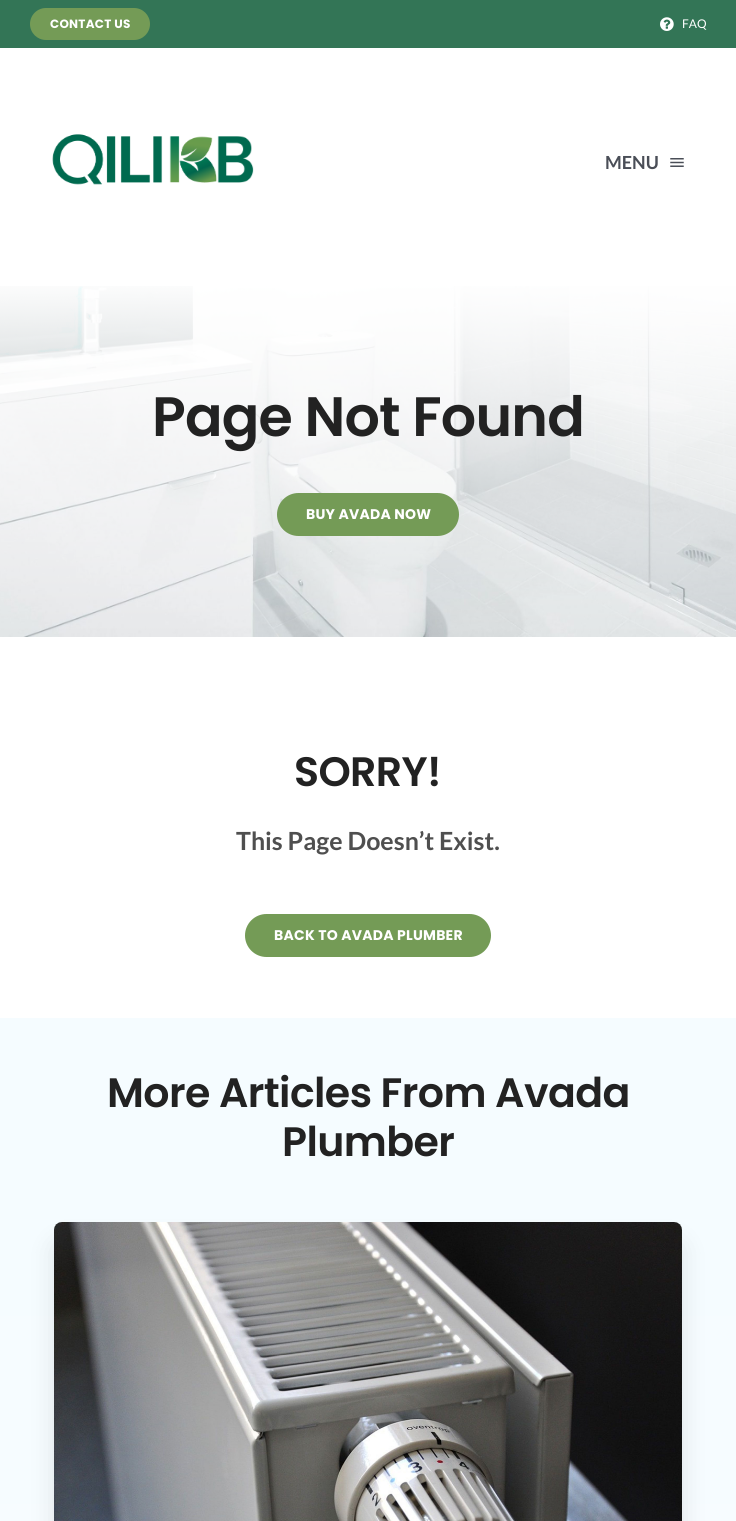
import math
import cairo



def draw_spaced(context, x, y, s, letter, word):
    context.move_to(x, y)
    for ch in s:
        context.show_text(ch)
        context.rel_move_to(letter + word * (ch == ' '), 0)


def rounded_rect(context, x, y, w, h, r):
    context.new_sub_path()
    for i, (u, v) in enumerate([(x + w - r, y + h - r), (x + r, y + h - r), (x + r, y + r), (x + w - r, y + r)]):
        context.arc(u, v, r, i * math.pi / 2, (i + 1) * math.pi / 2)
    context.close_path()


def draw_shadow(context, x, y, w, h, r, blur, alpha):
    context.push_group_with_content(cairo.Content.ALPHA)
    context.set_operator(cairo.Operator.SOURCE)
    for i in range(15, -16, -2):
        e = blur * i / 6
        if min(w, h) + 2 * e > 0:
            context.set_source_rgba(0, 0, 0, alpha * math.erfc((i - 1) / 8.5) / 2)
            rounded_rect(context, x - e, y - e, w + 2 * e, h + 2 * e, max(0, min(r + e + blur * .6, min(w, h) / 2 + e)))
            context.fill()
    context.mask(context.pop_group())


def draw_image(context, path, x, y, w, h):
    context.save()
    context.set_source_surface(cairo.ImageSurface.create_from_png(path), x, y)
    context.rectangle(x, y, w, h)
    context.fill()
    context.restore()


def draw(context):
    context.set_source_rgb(1, 1, 1)
    context.paint()
    context.set_source_rgb(51 / 255, 117 / 255, 86 / 255)
    context.rectangle(0, 0, 736, 48)
    context.fill()
    context.set_source_rgb(116 / 255, 155 / 255, 86 / 255)
    rounded_rect(context, 30, 8, 120, 32, 16)
    context.fill()
    draw_image(context, "images/1.png", 660, 17, 14, 14)
    draw_image(context, "images/2.png", 52, 134, 202, 51)
    draw_image(context, "images/3.png", 670, 158, 14, 9)
    draw_image(context, "images/4.png", 0, 286, 736, 351)
    rounded_rect(context, 277, 493, 182, 43, 21.5)
    context.fill()
    rounded_rect(context, 245, 914, 246, 43, 21.5)
    context.fill()
    context.set_source_rgb(245 / 255, 252 / 255, 1)
    context.rectangle(0, 1018, 736, 204)
    context.fill()
    gradient = cairo.LinearGradient(368, 1222, 368, 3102)
    gradient.add_color_stop_rgba(0, 245 / 255, 252 / 255, 1, 1)
    gradient.add_color_stop_rgba(1, 1, 1, 1, 1)
    context.set_source(gradient)
    context.rectangle(0, 1222, 736, 299)
    context.fill()
    context.set_source_rgb(0, 0, 0)
    draw_shadow(context, 54, 1242, 628, 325, 8, 12.5, 0.1)
    draw_image(context, "images/5.png", 54, 1222, 628, 299)
    context.select_font_face("Poppins", cairo.FontSlant.NORMAL, cairo.FontWeight.BOLD)
    context.set_font_size(12)
    context.set_source_rgb(1, 1, 1)
    draw_spaced(context, 50, 28, "CONTACT US", 0.25, 0)
    context.select_font_face("Lato")
    context.move_to(682, 28)
    context.show_text("FAQ")
    context.select_font_face("Lato", cairo.FontSlant.NORMAL, cairo.FontWeight.BOLD)
    context.set_font_size(18)
    context.set_source_rgb(74 / 255, 78 / 255, 87 / 255)
    context.move_to(605, 169)
    context.show_text("MENU")
    context.select_font_face("Poppins SemiBold")
    context.set_font_size(55.5)
    context.set_source_rgb(34 / 255, 34 / 255, 34 / 255)
    draw_spaced(context, 152, 436, "Page Not Found", -0.8, 0)
    context.select_font_face("Poppins", cairo.FontSlant.NORMAL, cairo.FontWeight.BOLD)
    context.set_font_size(14)
    context.set_source_rgb(1, 1, 1)
    draw_spaced(context, 306, 519, "BUY AVADA NOW", 0.25, 0)
    context.select_font_face("Poppins SemiBold")
    context.set_font_size(41.1)
    context.set_source_rgb(34 / 255, 34 / 255, 34 / 255)
    draw_spaced(context, 294, 786, "SORRY!", -0.6, 0)
    context.select_font_face("Lato", cairo.FontSlant.NORMAL, cairo.FontWeight.BOLD)
    context.set_font_size(25)
    context.set_source_rgb(79 / 255, 79 / 255, 79 / 255)
    context.move_to(236, 850)
    context.show_text("This Page Doesn’t Exist.")
    context.select_font_face("Poppins", cairo.FontSlant.NORMAL, cairo.FontWeight.BOLD)
    context.set_font_size(14)
    context.set_source_rgb(1, 1, 1)
    draw_spaced(context, 274, 940, "BACK TO AVADA PLUMBER", 0.25, 0)
    context.select_font_face("Poppins SemiBold")
    context.set_font_size(41.1)
    context.set_source_rgb(34 / 255, 34 / 255, 34 / 255)
    draw_spaced(context, 107, 1107, "More Articles From Avada", -0.6, 0)
    draw_spaced(context, 282, 1156, "Plumber", -0.6, 0)


surface = cairo.ImageSurface(cairo.Format.RGB24, 736, 1521)
context = cairo.Context(surface)
options = cairo.FontOptions()
options.set_hint_metrics(cairo.HintMetrics.OFF)
options.set_hint_style(cairo.HintStyle.NONE)
context.set_font_options(options)
context.set_miter_limit(4)
draw(context)
surface.write_to_png("out.png")
